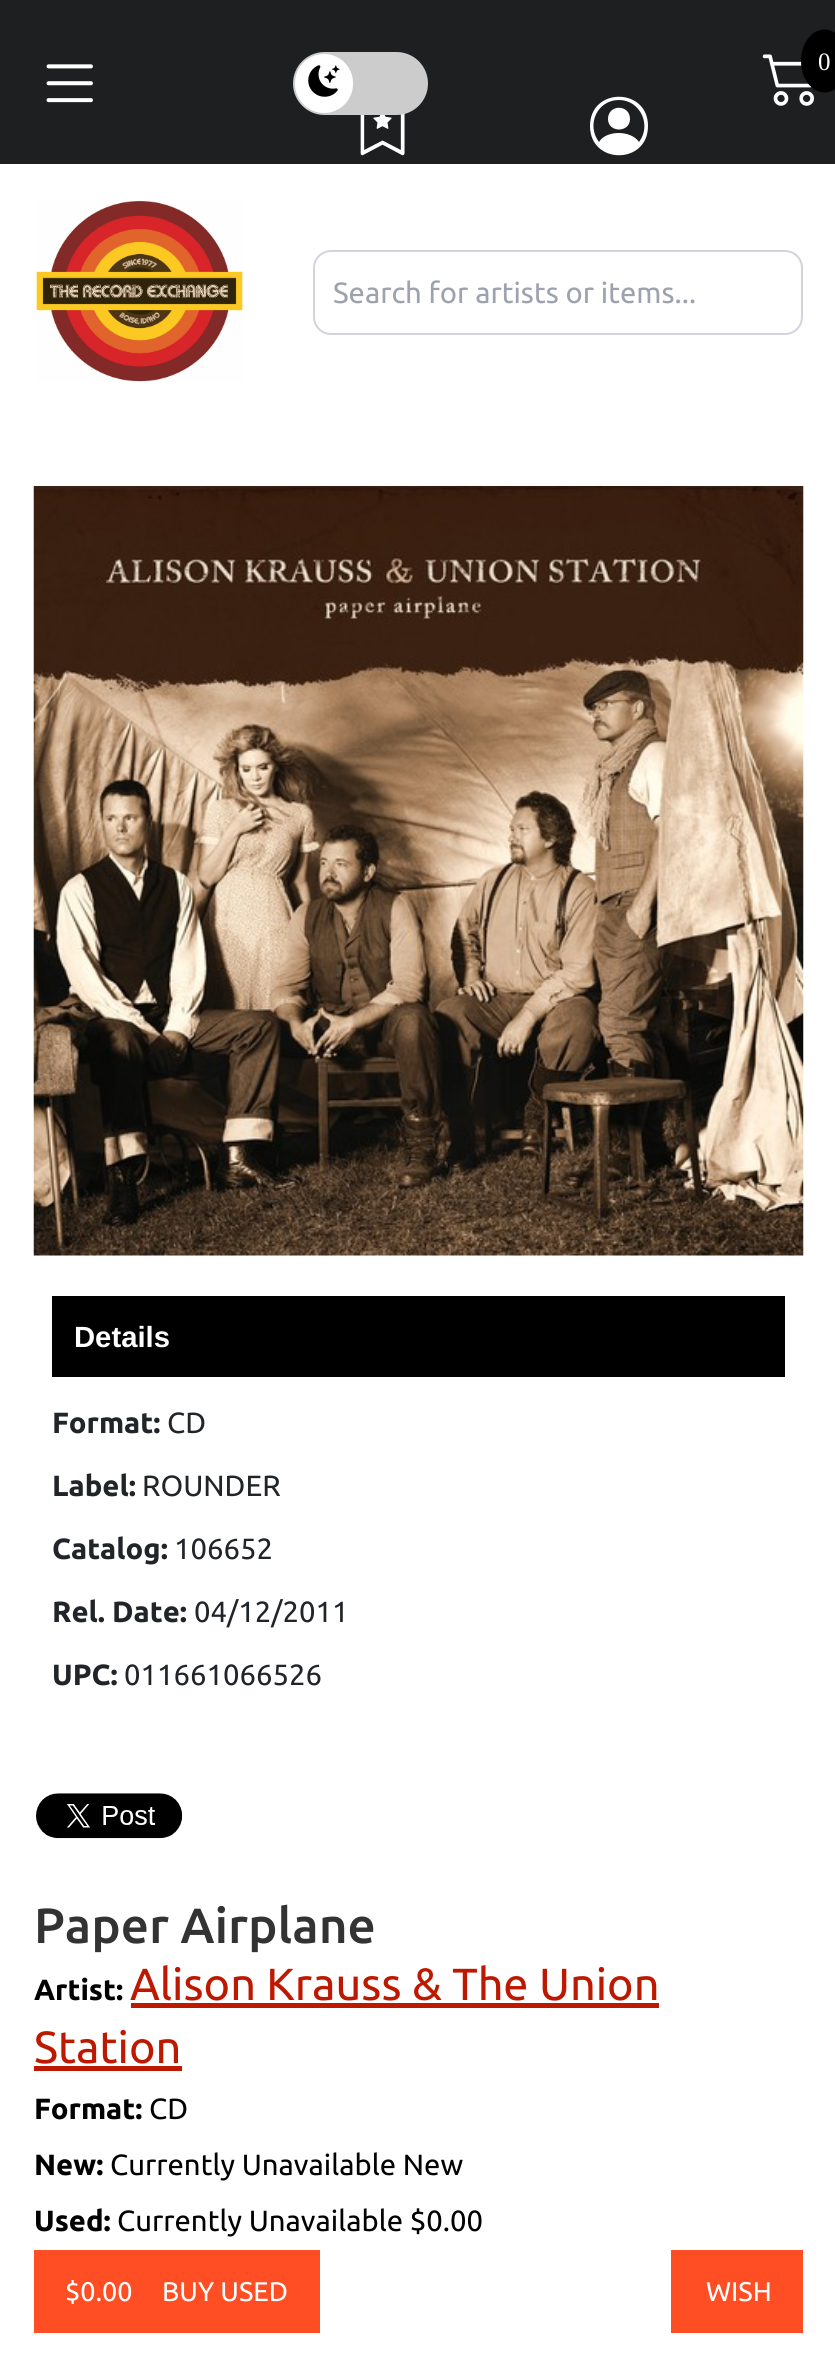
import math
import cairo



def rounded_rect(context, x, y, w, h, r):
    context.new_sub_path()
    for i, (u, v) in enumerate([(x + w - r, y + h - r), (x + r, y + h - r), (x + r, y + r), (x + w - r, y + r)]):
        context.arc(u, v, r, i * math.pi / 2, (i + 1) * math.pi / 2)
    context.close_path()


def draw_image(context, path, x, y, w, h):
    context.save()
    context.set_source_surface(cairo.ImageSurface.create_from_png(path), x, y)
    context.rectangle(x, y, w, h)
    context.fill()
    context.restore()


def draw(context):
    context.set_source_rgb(1, 1, 1)
    context.paint()
    context.set_source_rgb(29 / 255, 31 / 255, 32 / 255)
    context.rectangle(0, 0, 835, 164)
    context.fill()
    draw_image(context, "images/3.png", 360, 113, 45, 43)
    context.set_source_rgb(204 / 255, 204 / 255, 204 / 255)
    rounded_rect(context, 293, 52, 135, 63, 31.5)
    context.fill()
    context.set_source_rgb(1, 1, 1)
    rounded_rect(context, 295, 54, 58, 59, 29)
    context.fill()
    draw_image(context, "images/1.png", 308, 65, 32, 32)
    draw_image(context, "images/2.png", 762, 54, 52, 52)
    context.set_source_rgb(0, 0, 0)
    context.new_path()
    context.move_to(824.5, 29.5)
    context.curve_to(837.5, 29.5, 848, 43.5, 848, 61)
    context.curve_to(848, 78.5, 837.5, 92.5, 824.5, 92.5)
    context.curve_to(811.5, 92.5, 801, 78.5, 801, 61)
    context.curve_to(801, 43.5, 811.5, 29.5, 824.5, 29.5)
    context.close_path()
    context.fill()
    context.set_source_rgb(1, 1, 1)
    context.new_path()
    context.move_to(630, 119)
    context.curve_to(630, 133, 608, 133, 608, 119)
    context.curve_to(608, 104, 630, 104, 630, 119)
    context.close_path()
    context.move_to(590, 126)
    context.curve_to(590, 87, 648, 87, 648, 126)
    context.curve_to(648, 165, 590, 165, 590, 126)
    context.close_path()
    context.move_to(619, 100)
    context.curve_to(597, 100, 586, 125, 599, 142)
    context.curve_to(606, 130, 631, 130, 639, 142)
    context.curve_to(652, 125, 640, 100, 619, 100)
    context.close_path()
    context.fill()
    draw_image(context, "images/4.png", 46, 64, 47, 39)
    draw_image(context, "images/5.png", 36, 200, 207, 182)
    rounded_rect(context, 314, 251, 488, 83, 17)
    context.set_source_rgb(209 / 255, 213 / 255, 219 / 255)
    context.stroke()
    draw_image(context, "images/6.png", 33, 486, 771, 770)
    context.set_source_rgb(0, 0, 0)
    context.rectangle(52, 1296, 733, 81)
    context.fill()
    draw_image(context, "images/7.png", 36, 1793, 147, 46)
    context.set_source_rgb(189 / 255, 24 / 255, 0)
    context.rectangle(131, 2003, 528, 5)
    context.fill()
    context.rectangle(34, 2066, 148, 5)
    context.fill()
    context.set_source_rgb(1, 78 / 255, 36 / 255)
    context.rectangle(34, 2250, 286, 83)
    context.fill()
    context.rectangle(671, 2250, 132, 83)
    context.fill()
    context.select_font_face("Liberation Serif")
    context.set_font_size(25)
    context.set_source_rgb(1, 1, 1)
    context.move_to(818, 70)
    context.show_text("0")
    context.select_font_face("Ubuntu")
    context.set_font_size(29.25)
    context.set_source_rgb(156 / 255, 163 / 255, 175 / 255)
    context.move_to(333, 303)
    context.show_text("Search for artists or items...")
    context.select_font_face("Liberation Sans", cairo.FontSlant.NORMAL, cairo.FontWeight.BOLD)
    context.set_source_rgb(1, 1, 1)
    context.move_to(74, 1347)
    context.show_text("Details")
    context.select_font_face("Ubuntu", cairo.FontSlant.NORMAL, cairo.FontWeight.BOLD)
    context.set_source_rgb(33 / 255, 37 / 255, 41 / 255)
    context.move_to(52, 1433)
    context.show_text("Format:")
    context.select_font_face("Ubuntu")
    context.move_to(167, 1433)
    context.show_text("CD")
    context.select_font_face("Ubuntu", cairo.FontSlant.NORMAL, cairo.FontWeight.BOLD)
    context.move_to(52, 1496)
    context.show_text("Label:")
    context.select_font_face("Ubuntu")
    context.move_to(142, 1496)
    context.show_text("ROUNDER")
    context.select_font_face("Ubuntu", cairo.FontSlant.NORMAL, cairo.FontWeight.BOLD)
    context.move_to(52, 1559)
    context.show_text("Catalog:")
    context.select_font_face("Ubuntu")
    context.move_to(174, 1559)
    context.show_text("106652")
    context.select_font_face("Ubuntu", cairo.FontSlant.NORMAL, cairo.FontWeight.BOLD)
    context.move_to(52, 1622)
    context.show_text("Rel. Date:")
    context.select_font_face("Ubuntu")
    context.move_to(194, 1622)
    context.show_text("04/12/2011")
    context.select_font_face("Ubuntu", cairo.FontSlant.NORMAL, cairo.FontWeight.BOLD)
    context.move_to(52, 1685)
    context.show_text("UPC:")
    context.select_font_face("Ubuntu")
    context.move_to(124, 1685)
    context.show_text("011661066526")
    context.select_font_face("Ubuntu Medium")
    context.set_font_size(49.5)
    context.set_source_rgb(51 / 255, 51 / 255, 51 / 255)
    context.move_to(34, 1943)
    context.show_text("Paper Airplane")
    context.select_font_face("Ubuntu", cairo.FontSlant.NORMAL, cairo.FontWeight.BOLD)
    context.set_font_size(29.25)
    context.set_source_rgb(0, 0, 0)
    context.move_to(34, 2000)
    context.show_text("Artist:")
    context.select_font_face("Ubuntu")
    context.set_font_size(45)
    context.set_source_rgb(189 / 255, 24 / 255, 0)
    context.move_to(130, 2000)
    context.show_text("Alison Krauss & The Union")
    context.move_to(34, 2063)
    context.show_text("Station")
    context.select_font_face("Ubuntu", cairo.FontSlant.NORMAL, cairo.FontWeight.BOLD)
    context.set_font_size(29.25)
    context.set_source_rgb(0, 0, 0)
    context.move_to(34, 2119)
    context.show_text("Format:")
    context.select_font_face("Ubuntu")
    context.move_to(149, 2119)
    context.show_text("CD")
    context.select_font_face("Ubuntu", cairo.FontSlant.NORMAL, cairo.FontWeight.BOLD)
    context.move_to(34, 2175)
    context.show_text("New:")
    context.select_font_face("Ubuntu")
    context.move_to(110, 2175)
    context.show_text("Currently Unavailable New")
    context.select_font_face("Ubuntu", cairo.FontSlant.NORMAL, cairo.FontWeight.BOLD)
    context.move_to(34, 2231)
    context.show_text("Used:")
    context.select_font_face("Ubuntu")
    context.move_to(117, 2231)
    context.show_text("Currently Unavailable $0.00")
    context.set_font_size(27)
    context.set_source_rgb(1, 1, 1)
    context.move_to(65, 2301)
    context.show_text("$0.00")
    context.move_to(162, 2301)
    context.show_text("BUY USED")
    context.move_to(706, 2301)
    context.show_text("WISH")


surface = cairo.ImageSurface(cairo.Format.RGB24, 835, 2354)
context = cairo.Context(surface)
options = cairo.FontOptions()
options.set_hint_metrics(cairo.HintMetrics.OFF)
options.set_hint_style(cairo.HintStyle.NONE)
context.set_font_options(options)
context.set_miter_limit(4)
draw(context)
surface.write_to_png("out.png")
